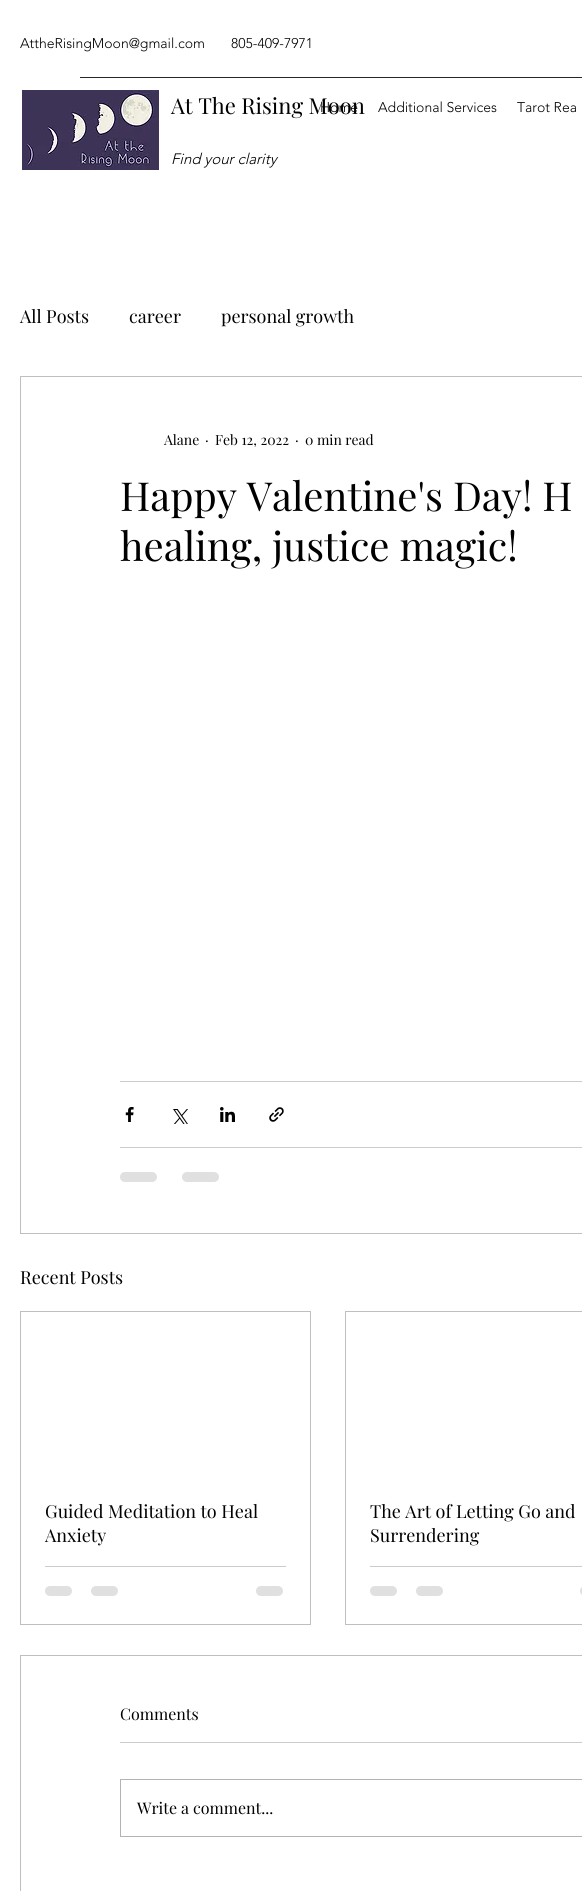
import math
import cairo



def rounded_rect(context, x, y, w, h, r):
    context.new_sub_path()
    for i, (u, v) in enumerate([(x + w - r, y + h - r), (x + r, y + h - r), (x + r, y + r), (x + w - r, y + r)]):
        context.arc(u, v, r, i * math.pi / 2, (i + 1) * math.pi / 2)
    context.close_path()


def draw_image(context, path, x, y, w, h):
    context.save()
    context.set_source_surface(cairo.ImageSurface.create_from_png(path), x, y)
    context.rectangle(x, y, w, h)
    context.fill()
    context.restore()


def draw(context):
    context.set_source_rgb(1, 1, 1)
    context.paint()
    context.set_source_rgb(38 / 255, 38 / 255, 38 / 255)
    context.rectangle(80, 77, 502, 1)
    context.fill()
    draw_image(context, "images/1.png", 22, 90, 137, 80)
    context.rectangle(20.5, 376.5, 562, 857)
    context.set_source_rgb(191 / 255, 191 / 255, 191 / 255)
    context.set_line_width(1)
    context.stroke()
    context.set_source_rgb(204 / 255, 204 / 255, 204 / 255)
    context.rectangle(120, 1081, 462, 1)
    context.fill()
    draw_image(context, "images/2.png", 125, 1107, 9, 15)
    draw_image(context, "images/3.png", 173, 1109, 15, 15)
    draw_image(context, "images/4.png", 220, 1107, 15, 15)
    draw_image(context, "images/5.png", 269, 1107, 15, 15)
    context.rectangle(120, 1147, 462, 1)
    context.fill()
    context.set_source_rgb(224 / 255, 224 / 255, 224 / 255)
    rounded_rect(context, 120, 1172, 37, 10, 5)
    context.fill()
    rounded_rect(context, 182, 1172, 37, 10, 5)
    context.fill()
    context.rectangle(20.5, 1311.5, 290, 313)
    context.set_source_rgb(191 / 255, 191 / 255, 191 / 255)
    context.stroke()
    context.set_source_rgb(204 / 255, 204 / 255, 204 / 255)
    context.rectangle(45, 1566, 241, 1)
    context.fill()
    context.set_source_rgb(224 / 255, 224 / 255, 224 / 255)
    rounded_rect(context, 45, 1586, 27, 10, 5)
    context.fill()
    rounded_rect(context, 91, 1586, 27, 10, 5)
    context.fill()
    rounded_rect(context, 256, 1586, 27, 10, 5)
    context.fill()
    context.rectangle(345.5, 1311.5, 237, 313)
    context.set_source_rgb(191 / 255, 191 / 255, 191 / 255)
    context.stroke()
    context.set_source_rgb(204 / 255, 204 / 255, 204 / 255)
    context.rectangle(370, 1566, 212, 1)
    context.fill()
    context.set_source_rgb(224 / 255, 224 / 255, 224 / 255)
    rounded_rect(context, 370, 1586, 27, 10, 5)
    context.fill()
    rounded_rect(context, 416, 1586, 27, 10, 5)
    context.fill()
    rounded_rect(context, 580, 1586, 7, 10, 5)
    context.fill()
    context.rectangle(20.5, 1655.5, 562, 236)
    context.set_source_rgb(191 / 255, 191 / 255, 191 / 255)
    context.stroke()
    context.set_source_rgb(204 / 255, 204 / 255, 204 / 255)
    context.rectangle(120, 1742, 462, 1)
    context.fill()
    context.rectangle(120.5, 1779.5, 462, 57)
    context.set_source_rgb(179 / 255, 179 / 255, 179 / 255)
    context.stroke()
    context.select_font_face("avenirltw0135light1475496 Light")
    context.set_font_size(14)
    context.set_source_rgb(0, 0, 0)
    context.move_to(20, 48)
    context.show_text("AttheRisingMoon@gmail.com")
    context.move_to(231, 48)
    context.show_text("805-409-7971")
    context.select_font_face("Playfair Display")
    context.set_font_size(22)
    context.move_to(171, 114)
    context.show_text("At The Rising Moon")
    context.select_font_face("avenirltw0135light1475496 Light", cairo.FontSlant.ITALIC)
    context.set_font_size(15)
    context.move_to(171, 164)
    context.show_text("Find your clarity")
    context.select_font_face("avenirltw0135light1475496 Light")
    context.set_font_size(14)
    context.move_to(320, 112)
    context.show_text("Home")
    context.move_to(378, 112)
    context.show_text("Additional Services")
    context.move_to(517, 112)
    context.show_text("Tarot Rea")
    context.select_font_face("Playfair Display")
    context.set_font_size(18)
    context.move_to(20, 323)
    context.show_text("All Posts")
    context.move_to(129, 323)
    context.show_text("career")
    context.move_to(221, 323)
    context.show_text("personal growth")
    context.set_font_size(14)
    context.move_to(164, 445)
    context.show_text("Alane")
    context.move_to(205, 445)
    context.show_text("·")
    context.move_to(215, 445)
    context.show_text("Feb 12, 2022")
    context.move_to(295, 445)
    context.show_text("·")
    context.move_to(305, 445)
    context.show_text("0 min read")
    context.set_font_size(40)
    context.move_to(120, 511)
    context.show_text("Happy Valentine's Day! H")
    context.move_to(120, 561)
    context.show_text("healing, justice magic!")
    context.set_font_size(18)
    context.move_to(20, 1284)
    context.show_text("Recent Posts")
    context.move_to(45, 1518)
    context.show_text("Guided Meditation to Heal")
    context.move_to(45, 1542)
    context.show_text("Anxiety")
    context.move_to(370, 1518)
    context.show_text("The Art of Letting Go and")
    context.move_to(370, 1542)
    context.show_text("Surrendering")
    context.set_font_size(16)
    context.move_to(120, 1720)
    context.show_text("Comments")
    context.move_to(137, 1814)
    context.show_text("Write a comment...")


surface = cairo.ImageSurface(cairo.Format.RGB24, 582, 1891)
context = cairo.Context(surface)
options = cairo.FontOptions()
options.set_hint_metrics(cairo.HintMetrics.OFF)
options.set_hint_style(cairo.HintStyle.NONE)
context.set_font_options(options)
context.set_miter_limit(4)
draw(context)
surface.write_to_png("out.png")
